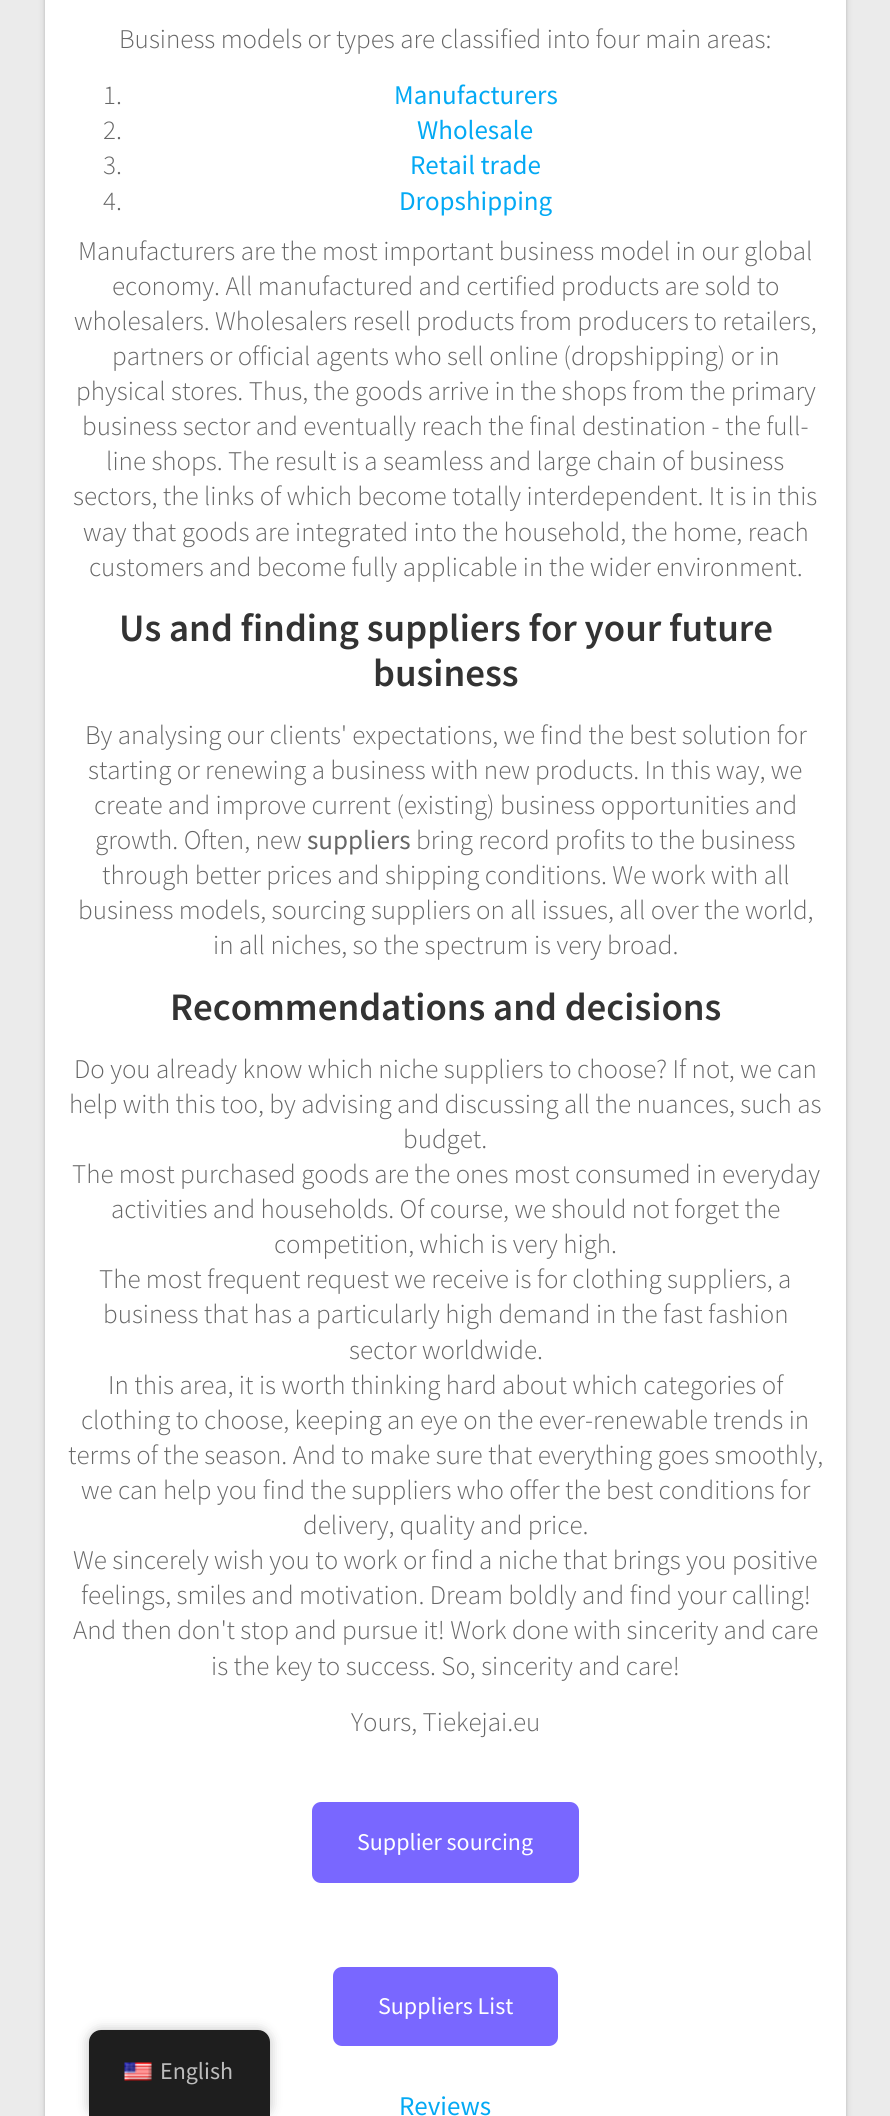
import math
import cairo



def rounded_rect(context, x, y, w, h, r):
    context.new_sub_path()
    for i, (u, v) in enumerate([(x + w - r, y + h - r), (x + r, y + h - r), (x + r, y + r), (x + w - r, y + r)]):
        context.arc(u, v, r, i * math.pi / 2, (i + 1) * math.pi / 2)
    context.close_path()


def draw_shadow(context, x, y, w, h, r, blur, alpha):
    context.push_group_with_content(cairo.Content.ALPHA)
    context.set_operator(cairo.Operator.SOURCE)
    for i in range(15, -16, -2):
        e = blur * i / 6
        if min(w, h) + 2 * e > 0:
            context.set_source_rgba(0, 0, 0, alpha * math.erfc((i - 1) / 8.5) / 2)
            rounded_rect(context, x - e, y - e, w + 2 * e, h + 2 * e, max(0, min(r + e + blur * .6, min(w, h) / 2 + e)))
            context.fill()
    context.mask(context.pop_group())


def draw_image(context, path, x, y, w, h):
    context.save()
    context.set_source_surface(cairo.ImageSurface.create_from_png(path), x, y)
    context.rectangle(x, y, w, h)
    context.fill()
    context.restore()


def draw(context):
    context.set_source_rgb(235 / 255, 235 / 255, 235 / 255)
    context.paint()
    context.set_source_rgb(0, 0, 0)
    draw_shadow(context, 45, -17, 801, 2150, 5, 4, 0.12)
    draw_shadow(context, 45, -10, 801, 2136, 5, 1.5, 0.14)
    context.set_source_rgb(1, 1, 1)
    context.rectangle(45, 0, 801, 2116)
    context.fill()
    context.set_source_rgb(121 / 255, 103 / 255, 1)
    rounded_rect(context, 312, 1802, 267, 81, 9)
    context.fill()
    rounded_rect(context, 333, 1967, 225, 79, 9)
    context.fill()
    context.set_source_rgb(0, 0, 0)
    draw_shadow(context, 89, 2030, 181, 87, 12, 6, 0.25)
    context.set_source_rgb(30 / 255, 30 / 255, 30 / 255)
    context.new_path()
    context.move_to(101, 2030)
    context.line_to(258, 2030)
    context.curve_to(264.5, 2030, 270, 2035.5, 270, 2042)
    context.line_to(270, 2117)
    context.line_to(89, 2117)
    context.line_to(89, 2042)
    context.curve_to(89, 2035.5, 94.5, 2030, 101, 2030)
    context.close_path()
    context.fill()
    draw_image(context, "images/1.png", 124, 2062, 28, 19)
    context.select_font_face("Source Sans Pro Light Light")
    context.set_font_size(27)
    context.set_source_rgb(102 / 255, 102 / 255, 102 / 255)
    context.move_to(119, 48)
    context.show_text("Business models or types are classified into four main areas:")
    context.move_to(103, 104)
    context.show_text("1.")
    context.select_font_face("Source Sans Pro")
    context.set_source_rgb(3 / 255, 169 / 255, 244 / 255)
    context.move_to(394, 104)
    context.show_text("Manufacturers")
    context.select_font_face("Source Sans Pro Light Light")
    context.set_source_rgb(102 / 255, 102 / 255, 102 / 255)
    context.move_to(103, 139)
    context.show_text("2.")
    context.select_font_face("Source Sans Pro")
    context.set_source_rgb(3 / 255, 169 / 255, 244 / 255)
    context.move_to(417, 139)
    context.show_text("Wholesale")
    context.select_font_face("Source Sans Pro Light Light")
    context.set_source_rgb(102 / 255, 102 / 255, 102 / 255)
    context.move_to(103, 174)
    context.show_text("3.")
    context.select_font_face("Source Sans Pro")
    context.set_source_rgb(3 / 255, 169 / 255, 244 / 255)
    context.move_to(410, 174)
    context.show_text("Retail trade")
    context.select_font_face("Source Sans Pro Light Light")
    context.set_source_rgb(102 / 255, 102 / 255, 102 / 255)
    context.move_to(103, 210)
    context.show_text("4.")
    context.select_font_face("Source Sans Pro")
    context.set_source_rgb(3 / 255, 169 / 255, 244 / 255)
    context.move_to(399, 210)
    context.show_text("Dropshipping")
    context.select_font_face("Source Sans Pro Light Light")
    context.set_source_rgb(102 / 255, 102 / 255, 102 / 255)
    context.move_to(78, 260)
    context.show_text("Manufacturers are the most important business model in our global")
    context.move_to(112, 295)
    context.show_text("economy. All manufactured and certified products are sold to")
    context.move_to(74, 330)
    context.show_text("wholesalers. Wholesalers resell products from producers to retailers,")
    context.move_to(112, 365)
    context.show_text("partners or official agents who sell online (dropshipping) or in")
    context.move_to(76, 400)
    context.show_text("physical stores. Thus, the goods arrive in the shops from the primary")
    context.move_to(82, 435)
    context.show_text("business sector and eventually reach the final destination - the full-")
    context.move_to(106, 470)
    context.show_text("line shops. The result is a seamless and large chain of business")
    context.move_to(73, 505)
    context.show_text("sectors, the links of which become totally interdependent. It is in this")
    context.move_to(83, 541)
    context.show_text("way that goods are integrated into the household, the home, reach")
    context.move_to(89, 576)
    context.show_text("customers and become fully applicable in the wider environment.")
    context.select_font_face("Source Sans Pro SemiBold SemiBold")
    context.set_font_size(38.9)
    context.set_source_rgb(51 / 255, 51 / 255, 51 / 255)
    context.move_to(119, 641)
    context.show_text("Us and finding suppliers for your future")
    context.move_to(373, 686)
    context.show_text("business")
    context.select_font_face("Source Sans Pro Light Light")
    context.set_font_size(27)
    context.set_source_rgb(102 / 255, 102 / 255, 102 / 255)
    context.move_to(85, 744)
    context.show_text("By analysing our clients' expectations, we find the best solution for")
    context.move_to(88, 779)
    context.show_text("starting or renewing a business with new products. In this way, we")
    context.move_to(94, 814)
    context.show_text("create and improve current (existing) business opportunities and")
    context.move_to(95, 849)
    context.show_text("growth. Often, new")
    context.select_font_face("Source Sans Pro")
    context.move_to(307, 849)
    context.show_text("suppliers")
    context.select_font_face("Source Sans Pro Light Light")
    context.move_to(416, 849)
    context.show_text("bring record profits to the business")
    context.move_to(102, 884)
    context.show_text("through better prices and shipping conditions. We work with all")
    context.move_to(78, 919)
    context.show_text("business models, sourcing suppliers on all issues, all over the world,")
    context.move_to(213, 954)
    context.show_text("in all niches, so the spectrum is very broad.")
    context.select_font_face("Source Sans Pro SemiBold SemiBold")
    context.set_font_size(38.9)
    context.set_source_rgb(51 / 255, 51 / 255, 51 / 255)
    context.move_to(170, 1020)
    context.show_text("Recommendations and decisions")
    context.select_font_face("Source Sans Pro Light Light")
    context.set_font_size(27)
    context.set_source_rgb(102 / 255, 102 / 255, 102 / 255)
    context.move_to(74, 1078)
    context.show_text("Do you already know which niche suppliers to choose? If not, we can")
    context.move_to(69, 1113)
    context.show_text("help with this too, by advising and discussing all the nuances, such as")
    context.move_to(403, 1148)
    context.show_text("budget.")
    context.move_to(72, 1183)
    context.show_text("The most purchased goods are the ones most consumed in everyday")
    context.move_to(111, 1218)
    context.show_text("activities and households. Of course, we should not forget the")
    context.move_to(274, 1253)
    context.show_text("competition, which is very high.")
    context.move_to(99, 1288)
    context.show_text("The most frequent request we receive is for clothing suppliers, a")
    context.move_to(103, 1323)
    context.show_text("business that has a particularly high demand in the fast fashion")
    context.move_to(349, 1359)
    context.show_text("sector worldwide.")
    context.move_to(108, 1394)
    context.show_text("In this area, it is worth thinking hard about which categories of")
    context.move_to(81, 1429)
    context.show_text("clothing to choose, keeping an eye on the ever-renewable trends in")
    context.move_to(68, 1464)
    context.show_text("terms of the season. And to make sure that everything goes smoothly,")
    context.move_to(81, 1499)
    context.show_text("we can help you find the suppliers who offer the best conditions for")
    context.move_to(303, 1534)
    context.show_text("delivery, quality and price.")
    context.move_to(73, 1569)
    context.show_text("We sincerely wish you to work or find a niche that brings you positive")
    context.move_to(81, 1604)
    context.show_text("feelings, smiles and motivation. Dream boldly and find your calling!")
    context.move_to(73, 1639)
    context.show_text("And then don't stop and pursue it! Work done with sincerity and care")
    context.move_to(211, 1675)
    context.show_text("is the key to success. So, sincerity and care!")
    context.move_to(351, 1731)
    context.show_text("Yours, Tiekejai.eu")
    context.select_font_face("Source Sans Pro")
    context.set_font_size(24)
    context.set_source_rgb(1, 1, 1)
    context.move_to(357, 1850)
    context.show_text("Supplier sourcing")
    context.move_to(378, 2014)
    context.show_text("Suppliers List")
    context.set_font_size(27)
    context.set_source_rgb(3 / 255, 169 / 255, 244 / 255)
    context.move_to(399, 2115)
    context.show_text("Reviews")
    context.set_font_size(24)
    context.set_source_rgb(189 / 255, 189 / 255, 189 / 255)
    context.move_to(160, 2079)
    context.show_text("English")


surface = cairo.ImageSurface(cairo.Format.RGB24, 890, 2116)
context = cairo.Context(surface)
options = cairo.FontOptions()
options.set_hint_metrics(cairo.HintMetrics.OFF)
options.set_hint_style(cairo.HintStyle.NONE)
context.set_font_options(options)
context.set_miter_limit(4)
draw(context)
surface.write_to_png("out.png")
